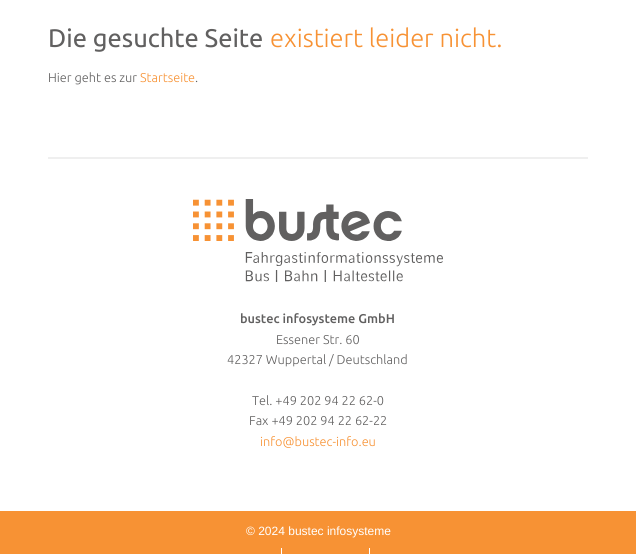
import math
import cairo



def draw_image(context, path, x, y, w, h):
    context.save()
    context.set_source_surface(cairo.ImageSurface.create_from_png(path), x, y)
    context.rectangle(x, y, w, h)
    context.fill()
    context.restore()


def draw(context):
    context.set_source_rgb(1, 1, 1)
    context.paint()
    context.set_source_rgb(239 / 255, 239 / 255, 239 / 255)
    context.rectangle(48, 157, 540, 2)
    context.fill()
    draw_image(context, "images/1.png", 193, 199, 250, 83)
    context.set_source_rgb(247 / 255, 146 / 255, 52 / 255)
    context.rectangle(0, 511, 636, 43)
    context.fill()
    context.set_source_rgb(1, 1, 1)
    context.rectangle(281, 548, 1, 6)
    context.fill()
    context.rectangle(369, 548, 1, 6)
    context.fill()
    context.select_font_face("Ubuntu")
    context.set_font_size(25.5)
    context.set_source_rgb(97 / 255, 96 / 255, 96 / 255)
    context.move_to(48, 47)
    context.show_text("Die gesuchte Seite")
    context.select_font_face("Ubuntu Light")
    context.set_source_rgb(247 / 255, 146 / 255, 52 / 255)
    context.move_to(270, 47)
    context.show_text("existiert leider nicht.")
    context.set_font_size(12.75)
    context.set_source_rgb(97 / 255, 96 / 255, 96 / 255)
    context.move_to(48, 82)
    context.show_text("Hier geht es zur")
    context.set_source_rgb(247 / 255, 146 / 255, 52 / 255)
    context.move_to(140, 82)
    context.show_text("Startseite")
    context.set_source_rgb(97 / 255, 96 / 255, 96 / 255)
    context.move_to(195, 82)
    context.show_text(".")
    context.select_font_face("Ubuntu Medium")
    context.move_to(240, 323)
    context.show_text("bustec infosysteme GmbH")
    context.select_font_face("Ubuntu Light")
    context.move_to(276, 344)
    context.show_text("Essener Str. 60")
    context.move_to(227, 364)
    context.show_text("42327 Wuppertal / Deutschland")
    context.move_to(252, 405)
    context.show_text("Tel. +49 202 94 22 62-0")
    context.move_to(249, 425)
    context.show_text("Fax +49 202 94 22 62-22")
    context.set_source_rgb(247 / 255, 146 / 255, 52 / 255)
    context.move_to(260, 446)
    context.show_text("info@bustec-info.eu")
    context.select_font_face("Liberation Sans")
    context.set_font_size(12)
    context.set_source_rgb(1, 1, 1)
    context.move_to(246, 535)
    context.show_text("© 2024 bustec infosysteme")


surface = cairo.ImageSurface(cairo.Format.RGB24, 636, 554)
context = cairo.Context(surface)
options = cairo.FontOptions()
options.set_hint_metrics(cairo.HintMetrics.OFF)
options.set_hint_style(cairo.HintStyle.NONE)
context.set_font_options(options)
context.set_miter_limit(4)
draw(context)
surface.write_to_png("out.png")
